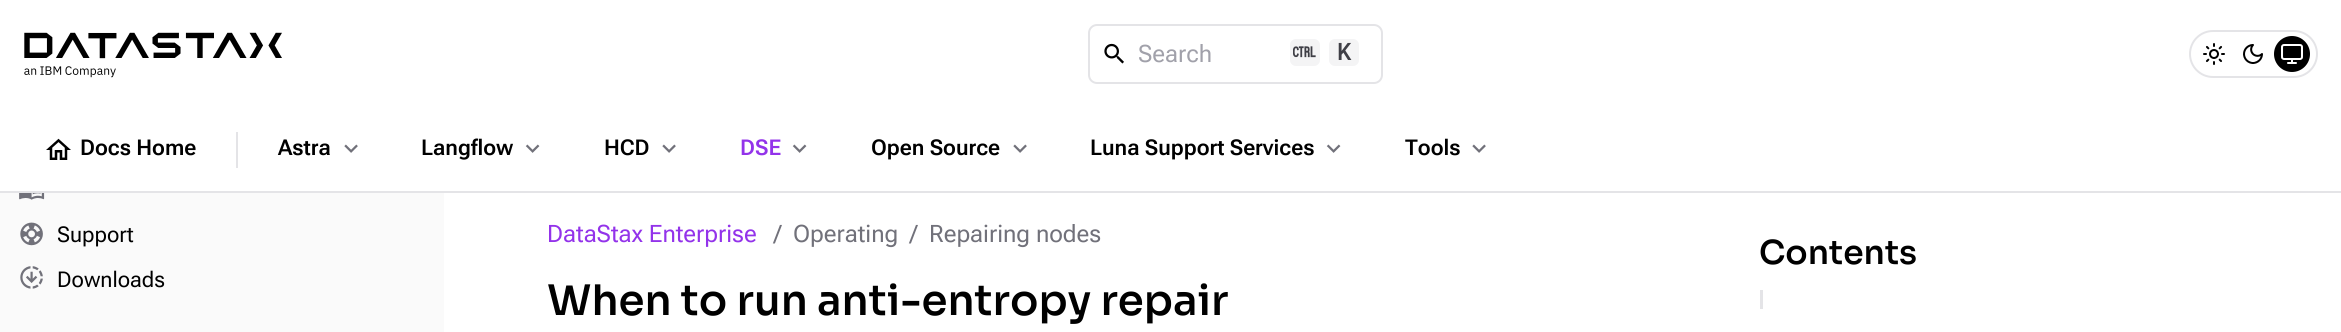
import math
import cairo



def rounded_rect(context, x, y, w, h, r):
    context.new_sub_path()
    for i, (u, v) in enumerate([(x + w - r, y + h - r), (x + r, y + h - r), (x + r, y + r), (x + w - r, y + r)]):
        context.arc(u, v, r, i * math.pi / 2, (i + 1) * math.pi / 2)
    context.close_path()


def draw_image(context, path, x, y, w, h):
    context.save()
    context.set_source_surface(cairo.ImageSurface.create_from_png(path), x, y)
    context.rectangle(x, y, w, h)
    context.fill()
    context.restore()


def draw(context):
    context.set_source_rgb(1, 1, 1)
    context.paint()
    context.set_source_rgb(228 / 255, 228 / 255, 231 / 255)
    context.rectangle(0, 191, 2341, 2)
    context.fill()
    draw_image(context, "images/1.png", 24, 32, 258, 46)
    rounded_rect(context, 1089, 25, 293, 58, 8)
    context.stroke()
    draw_image(context, "images/2.png", 1104, 43, 20, 21)
    context.set_source_rgb(244 / 255, 244 / 255, 245 / 255)
    rounded_rect(context, 1290, 39, 30, 27, 6)
    context.fill()
    draw_image(context, "images/3.png", 1293, 46, 23, 12)
    rounded_rect(context, 1329, 39, 30, 27, 6)
    context.fill()
    rounded_rect(context, 2190, 31, 127, 46, 23)
    context.set_source_rgb(228 / 255, 228 / 255, 231 / 255)
    context.stroke()
    draw_image(context, "images/4.png", 2203, 43, 22, 22)
    draw_image(context, "images/5.png", 2243, 44, 20, 20)
    context.set_source_rgb(0, 0, 0)
    context.arc(2292, 54, 18, 0, 2 * math.pi)
    context.fill()
    draw_image(context, "images/6.png", 2281, 44, 22, 20)
    draw_image(context, "images/7.png", 46, 138, 25, 22)
    context.set_source_rgb(228 / 255, 228 / 255, 231 / 255)
    context.rectangle(236, 132, 2, 36)
    context.fill()
    draw_image(context, "images/8.png", 344, 144, 14, 9)
    draw_image(context, "images/9.png", 525, 144, 15, 9)
    draw_image(context, "images/8.png", 662, 144, 14, 9)
    draw_image(context, "images/9.png", 792, 144, 15, 9)
    draw_image(context, "images/8.png", 1013, 144, 14, 9)
    draw_image(context, "images/9.png", 1326, 144, 15, 9)
    draw_image(context, "images/8.png", 1472, 144, 14, 9)
    context.set_source_rgb(250 / 255, 250 / 255, 250 / 255)
    context.rectangle(0, 193, 444, 139)
    context.fill()
    draw_image(context, "images/10.png", 19, 193, 26, 7)
    draw_image(context, "images/11.png", 20, 222, 23, 24)
    draw_image(context, "images/12.png", 20, 266, 23, 23)
    context.set_source_rgb(228 / 255, 228 / 255, 231 / 255)
    context.rectangle(1760, 290, 3, 19)
    context.fill()
    context.select_font_face("Roboto Flex")
    context.set_font_size(24)
    context.set_source_rgb(161 / 255, 161 / 255, 170 / 255)
    context.move_to(1138, 62)
    context.show_text("Search")
    context.select_font_face("Roboto Mono Medium")
    context.set_source_rgb(63 / 255, 63 / 255, 70 / 255)
    context.move_to(1337, 60)
    context.show_text("K")
    context.select_font_face("Roboto Flex SemiBold")
    context.set_font_size(21.75)
    context.set_source_rgb(0, 0, 0)
    context.move_to(80, 155)
    context.show_text("Docs Home")
    context.move_to(278, 155)
    context.show_text("Astra")
    context.move_to(421, 155)
    context.show_text("Langflow")
    context.move_to(604, 155)
    context.show_text("HCD")
    context.set_source_rgb(147 / 255, 51 / 255, 234 / 255)
    context.move_to(740, 155)
    context.show_text("DSE")
    context.set_source_rgb(0, 0, 0)
    context.move_to(871, 155)
    context.show_text("Open Source")
    context.move_to(1090, 155)
    context.show_text("Luna Support Services")
    context.move_to(1405, 155)
    context.show_text("Tools")
    context.select_font_face("Roboto Flex")
    context.move_to(57, 242)
    context.show_text("Support")
    context.move_to(57, 287)
    context.show_text("Downloads")
    context.set_font_size(24)
    context.set_source_rgb(147 / 255, 51 / 255, 234 / 255)
    context.move_to(547, 242)
    context.show_text("DataStax Enterprise")
    context.set_source_rgb(113 / 255, 113 / 255, 122 / 255)
    context.move_to(774, 242)
    context.show_text("/")
    context.move_to(793, 242)
    context.show_text("Operating")
    context.move_to(910, 242)
    context.show_text("/")
    context.move_to(929, 242)
    context.show_text("Repairing nodes")
    context.select_font_face("Sora Medium")
    context.set_font_size(42)
    context.set_source_rgb(0, 0, 0)
    context.move_to(547, 315)
    context.show_text("When to run anti-entropy repair")
    context.set_font_size(33)
    context.move_to(1759, 264)
    context.show_text("Contents")


surface = cairo.ImageSurface(cairo.Format.RGB24, 2341, 332)
context = cairo.Context(surface)
options = cairo.FontOptions()
options.set_hint_metrics(cairo.HintMetrics.OFF)
options.set_hint_style(cairo.HintStyle.NONE)
context.set_font_options(options)
context.set_miter_limit(4)
draw(context)
surface.write_to_png("out.png")
